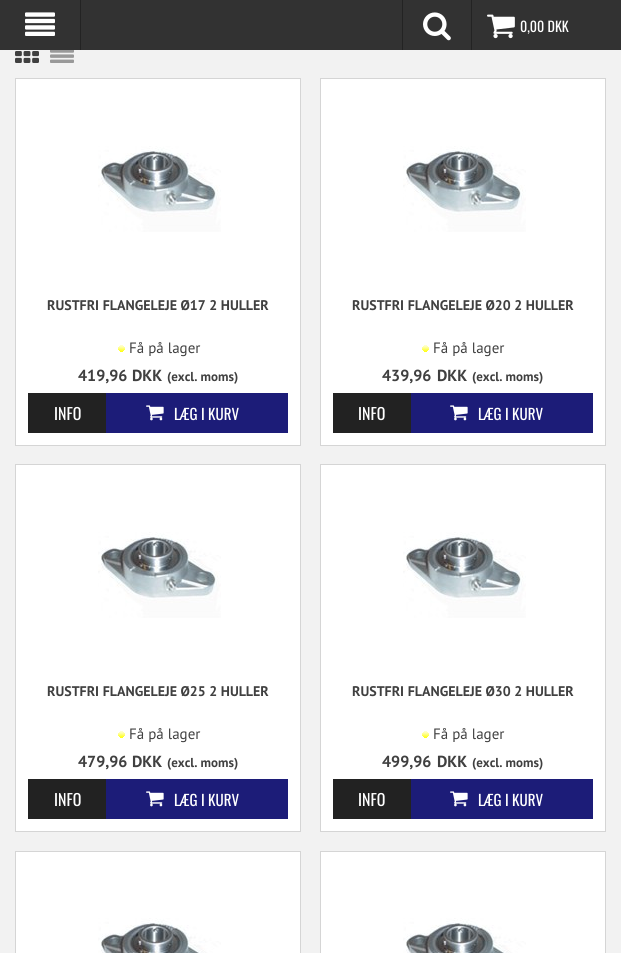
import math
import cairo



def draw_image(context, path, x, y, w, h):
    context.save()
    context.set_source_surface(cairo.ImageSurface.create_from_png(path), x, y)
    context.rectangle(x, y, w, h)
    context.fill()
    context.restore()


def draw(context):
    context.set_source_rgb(242 / 255, 242 / 255, 242 / 255)
    context.paint()
    context.set_source_rgb(50 / 255, 50 / 255, 50 / 255)
    context.rectangle(0, 0, 621, 50)
    context.fill()
    context.set_source_rgb(35 / 255, 35 / 255, 35 / 255)
    context.rectangle(80, 0, 1, 50)
    context.fill()
    draw_image(context, "images/1.png", 25, 12, 30, 24)
    context.rectangle(402, 0, 1, 50)
    context.fill()
    draw_image(context, "images/2.png", 423, 12, 28, 29)
    context.rectangle(471, 0, 1, 50)
    context.fill()
    draw_image(context, "images/3.png", 487, 14, 28, 25)
    draw_image(context, "images/4.png", 15, 51, 24, 12)
    draw_image(context, "images/5.png", 50, 50, 24, 13)
    context.set_source_rgb(1, 1, 1)
    context.rectangle(15.5, 78.5, 285, 367)
    context.fill_preserve()
    context.set_source_rgb(213 / 255, 213 / 255, 213 / 255)
    context.set_line_width(1)
    context.stroke()
    draw_image(context, "images/6.png", 98, 146, 123, 86)
    draw_image(context, "images/7.png", 118, 345, 7, 7)
    context.set_source_rgb(34 / 255, 34 / 255, 34 / 255)
    context.rectangle(28, 393, 78, 40)
    context.fill()
    context.set_source_rgb(28 / 255, 28 / 255, 120 / 255)
    context.rectangle(106, 393, 182, 40)
    context.fill()
    draw_image(context, "images/8.png", 146, 405, 18, 16)
    context.set_source_rgb(1, 1, 1)
    context.rectangle(320.5, 78.5, 285, 367)
    context.fill_preserve()
    context.set_source_rgb(213 / 255, 213 / 255, 213 / 255)
    context.stroke()
    draw_image(context, "images/6.png", 403, 146, 123, 86)
    draw_image(context, "images/7.png", 422, 345, 7, 7)
    context.set_source_rgb(34 / 255, 34 / 255, 34 / 255)
    context.rectangle(333, 393, 78, 40)
    context.fill()
    context.set_source_rgb(28 / 255, 28 / 255, 120 / 255)
    context.rectangle(411, 393, 182, 40)
    context.fill()
    draw_image(context, "images/8.png", 450, 405, 18, 16)
    context.set_source_rgb(1, 1, 1)
    context.rectangle(15.5, 464.5, 285, 367)
    context.fill_preserve()
    context.set_source_rgb(213 / 255, 213 / 255, 213 / 255)
    context.stroke()
    draw_image(context, "images/6.png", 98, 532, 123, 86)
    draw_image(context, "images/7.png", 118, 731, 7, 7)
    context.set_source_rgb(34 / 255, 34 / 255, 34 / 255)
    context.rectangle(28, 779, 78, 40)
    context.fill()
    context.set_source_rgb(28 / 255, 28 / 255, 120 / 255)
    context.rectangle(106, 779, 182, 40)
    context.fill()
    draw_image(context, "images/8.png", 146, 791, 18, 16)
    context.set_source_rgb(1, 1, 1)
    context.rectangle(320.5, 464.5, 285, 367)
    context.fill_preserve()
    context.set_source_rgb(213 / 255, 213 / 255, 213 / 255)
    context.stroke()
    draw_image(context, "images/6.png", 403, 532, 123, 86)
    draw_image(context, "images/7.png", 422, 731, 7, 7)
    context.set_source_rgb(34 / 255, 34 / 255, 34 / 255)
    context.rectangle(333, 779, 78, 40)
    context.fill()
    context.set_source_rgb(28 / 255, 28 / 255, 120 / 255)
    context.rectangle(411, 779, 182, 40)
    context.fill()
    draw_image(context, "images/8.png", 450, 791, 18, 16)
    context.set_source_rgb(1, 1, 1)
    context.rectangle(15.5, 851.5, 285, 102)
    context.fill_preserve()
    context.set_source_rgb(213 / 255, 213 / 255, 213 / 255)
    context.stroke()
    draw_image(context, "images/9.png", 98, 918, 123, 35)
    context.set_source_rgb(1, 1, 1)
    context.rectangle(320.5, 851.5, 285, 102)
    context.fill_preserve()
    context.set_source_rgb(213 / 255, 213 / 255, 213 / 255)
    context.stroke()
    draw_image(context, "images/9.png", 403, 918, 123, 35)
    context.select_font_face("Oswald")
    context.set_font_size(14)
    context.set_source_rgb(1, 1, 1)
    context.move_to(520, 32)
    context.show_text("0,00 DKK")
    context.select_font_face("PT Sans", cairo.FontSlant.NORMAL, cairo.FontWeight.BOLD)
    context.set_source_rgb(64 / 255, 64 / 255, 64 / 255)
    context.move_to(47, 310)
    context.show_text("RUSTFRI FLANGELEJE Ø17 2 HULLER")
    context.select_font_face("PT Sans")
    context.set_font_size(15)
    context.move_to(129, 353)
    context.show_text("Få på lager")
    context.select_font_face("PT Sans", cairo.FontSlant.NORMAL, cairo.FontWeight.BOLD)
    context.set_font_size(16)
    context.move_to(78, 381)
    context.show_text("419,96")
    context.move_to(132, 381)
    context.show_text("DKK")
    context.set_font_size(13)
    context.move_to(167, 381)
    context.show_text("(excl. moms)")
    context.select_font_face("Oswald")
    context.set_font_size(16)
    context.set_source_rgb(1, 1, 1)
    context.move_to(54, 420)
    context.show_text("INFO")
    context.set_font_size(15)
    context.move_to(174, 420)
    context.show_text("LÆG I KURV")
    context.select_font_face("PT Sans", cairo.FontSlant.NORMAL, cairo.FontWeight.BOLD)
    context.set_font_size(14)
    context.set_source_rgb(64 / 255, 64 / 255, 64 / 255)
    context.move_to(352, 310)
    context.show_text("RUSTFRI FLANGELEJE Ø20 2 HULLER")
    context.select_font_face("PT Sans")
    context.set_font_size(15)
    context.move_to(433, 353)
    context.show_text("Få på lager")
    context.select_font_face("PT Sans", cairo.FontSlant.NORMAL, cairo.FontWeight.BOLD)
    context.set_font_size(16)
    context.move_to(382, 381)
    context.show_text("439,96")
    context.move_to(437, 381)
    context.show_text("DKK")
    context.set_font_size(13)
    context.move_to(472, 381)
    context.show_text("(excl. moms)")
    context.select_font_face("Oswald")
    context.set_font_size(16)
    context.set_source_rgb(1, 1, 1)
    context.move_to(358, 420)
    context.show_text("INFO")
    context.set_font_size(15)
    context.move_to(478, 420)
    context.show_text("LÆG I KURV")
    context.select_font_face("PT Sans", cairo.FontSlant.NORMAL, cairo.FontWeight.BOLD)
    context.set_font_size(14)
    context.set_source_rgb(64 / 255, 64 / 255, 64 / 255)
    context.move_to(47, 696)
    context.show_text("RUSTFRI FLANGELEJE Ø25 2 HULLER")
    context.select_font_face("PT Sans")
    context.set_font_size(15)
    context.move_to(129, 739)
    context.show_text("Få på lager")
    context.select_font_face("PT Sans", cairo.FontSlant.NORMAL, cairo.FontWeight.BOLD)
    context.set_font_size(16)
    context.move_to(78, 767)
    context.show_text("479,96")
    context.move_to(132, 767)
    context.show_text("DKK")
    context.set_font_size(13)
    context.move_to(167, 767)
    context.show_text("(excl. moms)")
    context.select_font_face("Oswald")
    context.set_font_size(16)
    context.set_source_rgb(1, 1, 1)
    context.move_to(54, 806)
    context.show_text("INFO")
    context.set_font_size(15)
    context.move_to(174, 806)
    context.show_text("LÆG I KURV")
    context.select_font_face("PT Sans", cairo.FontSlant.NORMAL, cairo.FontWeight.BOLD)
    context.set_font_size(14)
    context.set_source_rgb(64 / 255, 64 / 255, 64 / 255)
    context.move_to(352, 696)
    context.show_text("RUSTFRI FLANGELEJE Ø30 2 HULLER")
    context.select_font_face("PT Sans")
    context.set_font_size(15)
    context.move_to(433, 739)
    context.show_text("Få på lager")
    context.select_font_face("PT Sans", cairo.FontSlant.NORMAL, cairo.FontWeight.BOLD)
    context.set_font_size(16)
    context.move_to(382, 767)
    context.show_text("499,96")
    context.move_to(437, 767)
    context.show_text("DKK")
    context.set_font_size(13)
    context.move_to(472, 767)
    context.show_text("(excl. moms)")
    context.select_font_face("Oswald")
    context.set_font_size(16)
    context.set_source_rgb(1, 1, 1)
    context.move_to(358, 806)
    context.show_text("INFO")
    context.set_font_size(15)
    context.move_to(478, 806)
    context.show_text("LÆG I KURV")


surface = cairo.ImageSurface(cairo.Format.RGB24, 621, 953)
context = cairo.Context(surface)
options = cairo.FontOptions()
options.set_hint_metrics(cairo.HintMetrics.OFF)
options.set_hint_style(cairo.HintStyle.NONE)
context.set_font_options(options)
context.set_miter_limit(4)
draw(context)
surface.write_to_png("out.png")
